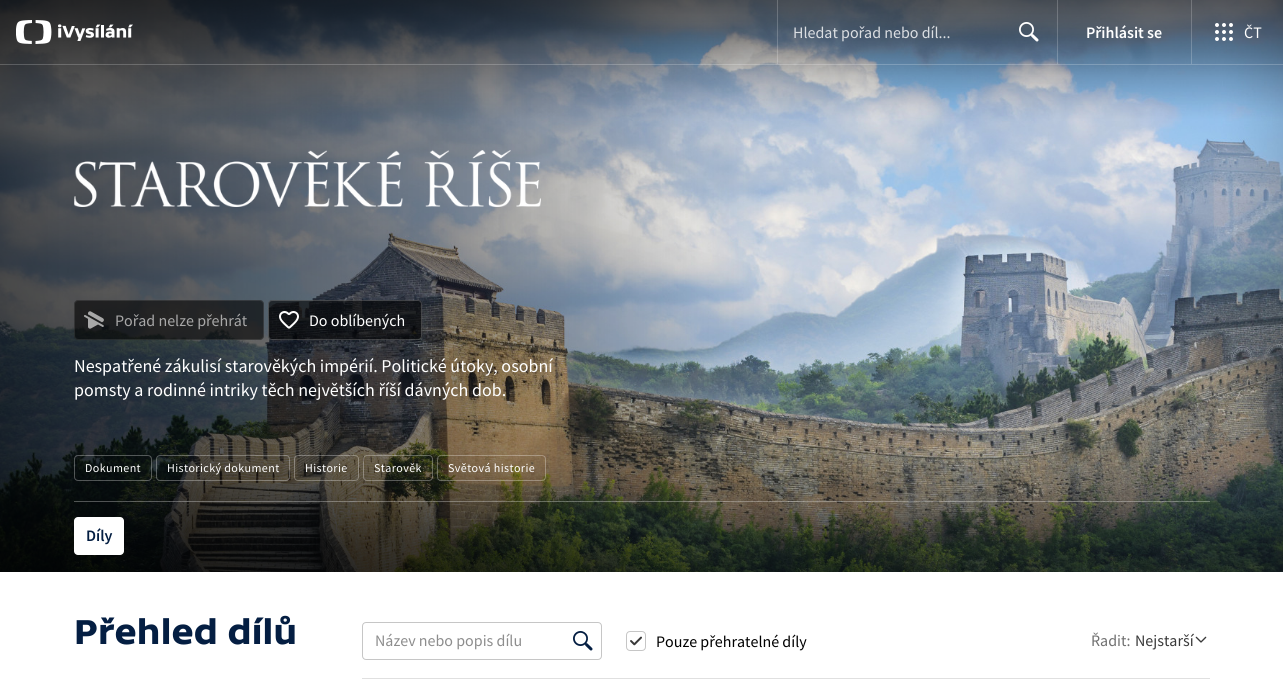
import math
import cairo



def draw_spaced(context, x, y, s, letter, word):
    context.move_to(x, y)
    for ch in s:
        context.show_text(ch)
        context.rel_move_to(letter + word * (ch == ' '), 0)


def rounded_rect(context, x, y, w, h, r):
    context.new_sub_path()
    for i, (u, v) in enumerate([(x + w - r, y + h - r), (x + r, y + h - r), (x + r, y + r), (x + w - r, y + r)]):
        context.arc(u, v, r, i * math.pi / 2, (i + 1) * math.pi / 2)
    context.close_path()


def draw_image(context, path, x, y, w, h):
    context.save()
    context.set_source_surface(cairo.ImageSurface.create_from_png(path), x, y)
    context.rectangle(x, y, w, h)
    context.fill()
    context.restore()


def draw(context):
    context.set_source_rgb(1, 1, 1)
    context.paint()
    draw_image(context, "images/4.png", 0, 0, 1283, 572)
    context.set_source_rgba(0, 0, 0, 0.6)
    context.rectangle(0, 0, 42, 572)
    context.fill()
    context.set_source_rgba(1, 1, 1, 0.2)
    context.rectangle(0, 64, 1283, 1)
    context.fill()
    draw_image(context, "images/1.png", 16, 20, 117, 24)
    context.rectangle(777, 0, 1, 64)
    context.fill()
    draw_image(context, "images/2.png", 1019, 22, 20, 20)
    context.rectangle(1057, 0, 1, 64)
    context.fill()
    context.rectangle(1191, 0, 1, 64)
    context.fill()
    draw_image(context, "images/3.png", 1215, 23, 18, 18)
    draw_image(context, "images/5.png", 74, 150, 467, 57)
    context.set_source_rgba(0, 0, 0, 0.6)
    rounded_rect(context, 74, 300, 190, 40, 4)
    context.fill()
    rounded_rect(context, 74.5, 300.5, 189, 39, 3.5)
    context.set_source_rgba(1, 1, 1, 0.1)
    context.set_line_width(1)
    context.stroke()
    draw_image(context, "images/6.png", 84, 311, 20, 18)
    context.set_source_rgba(0, 0, 0, 0.6)
    rounded_rect(context, 268, 300, 154, 40, 4)
    context.fill()
    rounded_rect(context, 268.5, 300.5, 153, 39, 3.5)
    context.set_source_rgba(1, 1, 1, 0.2)
    context.stroke()
    draw_image(context, "images/7.png", 279, 311, 20, 18)
    rounded_rect(context, 74.5, 455.5, 77, 25, 3.5)
    context.set_source_rgba(1, 1, 1, 0.3)
    context.stroke()
    rounded_rect(context, 156.5, 455.5, 133, 25, 3.5)
    context.stroke()
    rounded_rect(context, 294.5, 455.5, 64, 25, 3.5)
    context.stroke()
    rounded_rect(context, 363.5, 455.5, 69, 25, 3.5)
    context.stroke()
    rounded_rect(context, 437.5, 455.5, 108, 25, 3.5)
    context.stroke()
    context.rectangle(74, 501, 1136, 1)
    context.fill()
    context.set_source_rgb(1, 1, 1)
    rounded_rect(context, 74, 517, 50, 38, 4)
    context.fill()
    rounded_rect(context, 362.5, 622.5, 239, 37, 3.5)
    context.set_source_rgb(198 / 255, 198 / 255, 198 / 255)
    context.stroke()
    draw_image(context, "images/8.png", 573, 631, 20, 20)
    rounded_rect(context, 626.5, 631.5, 19, 19, 3.5)
    context.stroke()
    draw_image(context, "images/9.png", 630, 636, 12, 10)
    draw_image(context, "images/10.png", 1195, 636, 12, 7)
    context.set_source_rgb(224 / 255, 224 / 255, 224 / 255)
    context.rectangle(362, 678, 848, 1)
    context.fill()
    context.select_font_face("Source Sans Pro")
    context.set_font_size(16)
    context.set_source_rgb(219 / 255, 222 / 255, 226 / 255)
    context.move_to(793, 38)
    context.show_text("Hledat pořad nebo díl...")
    context.select_font_face("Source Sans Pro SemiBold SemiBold")
    context.set_source_rgb(1, 1, 1)
    context.move_to(1086, 38)
    context.show_text("Přihlásit se")
    context.select_font_face("Source Sans Pro")
    context.move_to(1244, 38)
    context.show_text("ČT")
    context.set_source_rgb(168 / 255, 168 / 255, 168 / 255)
    context.move_to(115, 326)
    context.show_text("Pořad nelze přehrát")
    context.set_source_rgb(1, 1, 1)
    context.move_to(309, 326)
    context.show_text("Do oblíbených")
    context.set_font_size(18)
    context.move_to(74, 372)
    context.show_text("Nespatřené zákulisí starověkých impérií. Politické útoky, osobní")
    context.move_to(74, 396)
    context.show_text("pomsty a rodinné intriky těch největších říší dávných dob.")
    context.set_font_size(12)
    draw_spaced(context, 85, 472, "Dokument", 0.4, 0)
    draw_spaced(context, 167, 472, "Historický dokument", 0.4, 0)
    draw_spaced(context, 305, 472, "Historie", 0.4, 0)
    draw_spaced(context, 374, 472, "Starověk", 0.4, 0)
    draw_spaced(context, 448, 472, "Světová historie", 0.4, 0)
    context.select_font_face("Source Sans Pro SemiBold SemiBold")
    context.set_font_size(16)
    context.set_source_rgb(4 / 255, 30 / 255, 66 / 255)
    context.move_to(86, 541)
    context.show_text("Díly")
    context.select_font_face("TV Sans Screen", cairo.FontSlant.NORMAL, cairo.FontWeight.BOLD)
    context.set_font_size(36)
    draw_spaced(context, 74, 644, "Přehled dílů", -0.4, 0)
    context.select_font_face("Source Sans Pro")
    context.set_font_size(16)
    context.set_source_rgb(141 / 255, 141 / 255, 141 / 255)
    context.move_to(375, 646)
    context.show_text("Název nebo popis dílu")
    context.set_source_rgb(0, 0, 0)
    context.move_to(656, 647)
    context.show_text("Pouze přehratelné díly")
    context.set_source_rgb(111 / 255, 111 / 255, 111 / 255)
    context.move_to(1091, 646)
    context.show_text("Řadit:")
    context.set_source_rgb(57 / 255, 57 / 255, 57 / 255)
    context.move_to(1135, 646)
    context.show_text("Nejstarší")


surface = cairo.ImageSurface(cairo.Format.RGB24, 1283, 692)
context = cairo.Context(surface)
options = cairo.FontOptions()
options.set_hint_metrics(cairo.HintMetrics.OFF)
options.set_hint_style(cairo.HintStyle.NONE)
context.set_font_options(options)
context.set_miter_limit(4)
draw(context)
surface.write_to_png("out.png")
